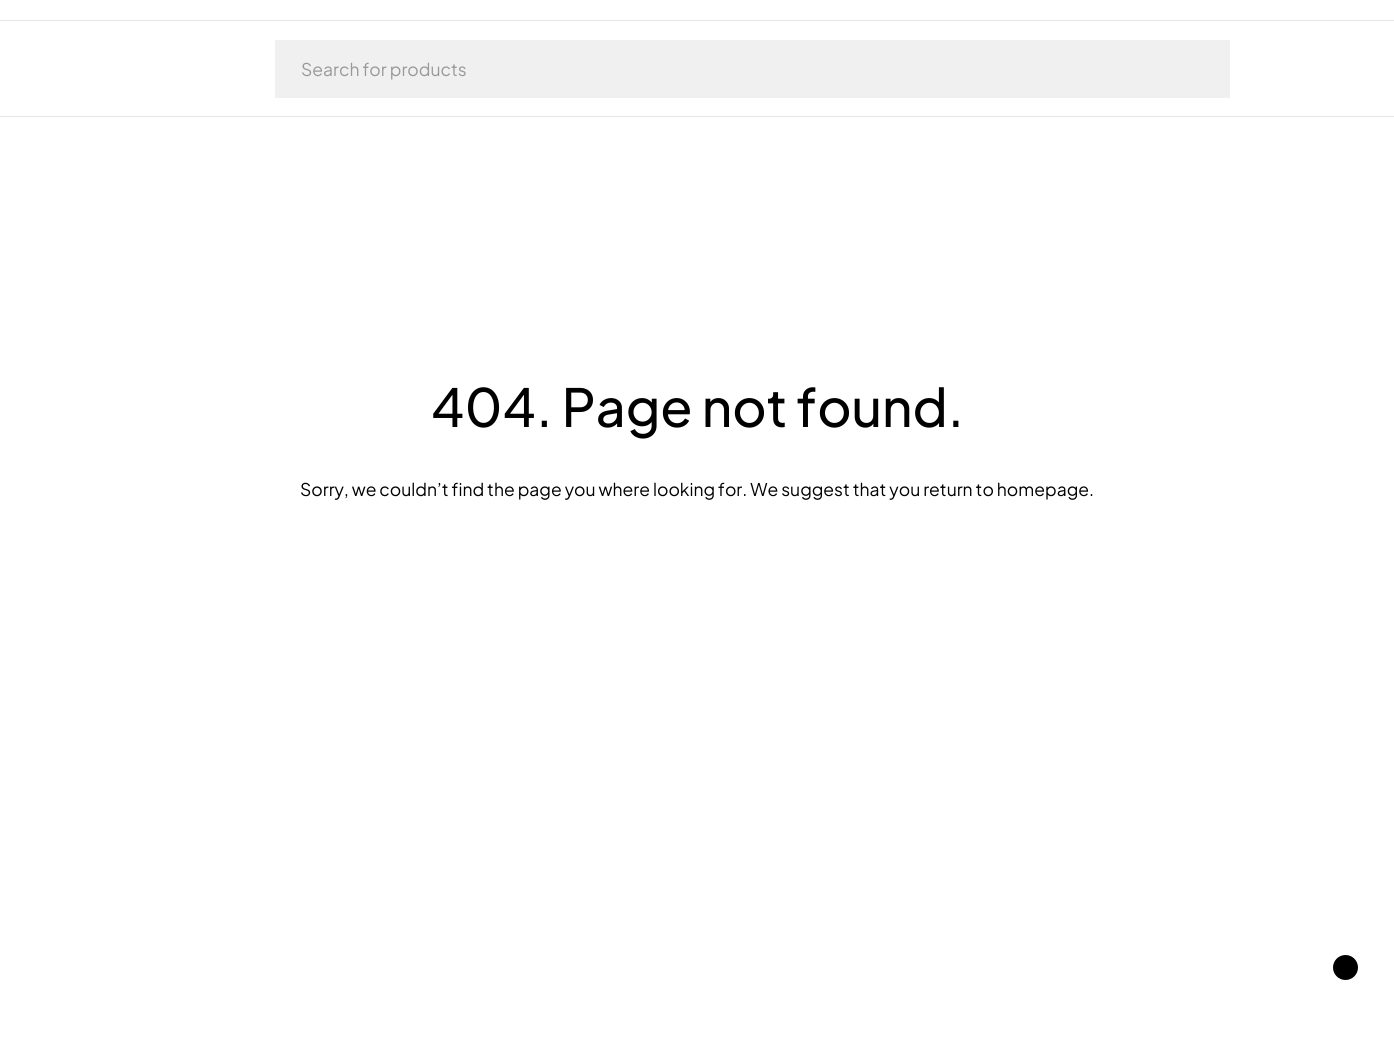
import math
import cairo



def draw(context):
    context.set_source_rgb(1, 1, 1)
    context.paint()
    context.set_source_rgb(229 / 255, 229 / 255, 229 / 255)
    context.rectangle(0, 20, 1394, 1)
    context.fill()
    context.set_source_rgb(240 / 255, 240 / 255, 240 / 255)
    context.rectangle(275, 40, 955, 58)
    context.fill()
    context.set_source_rgb(229 / 255, 229 / 255, 229 / 255)
    context.rectangle(0, 116, 1394, 1)
    context.fill()
    context.set_source_rgb(0, 0, 0)
    context.arc(1345.5, 967.5, 12.5, 0, 2 * math.pi)
    context.fill()
    context.select_font_face("Plus Jakarta Sans")
    context.set_font_size(17.5)
    context.set_source_rgb(153 / 255, 153 / 255, 153 / 255)
    context.move_to(301, 76)
    context.show_text("Search for products")
    context.select_font_face("Plus Jakarta Sans Medium")
    context.set_font_size(52.5)
    context.set_source_rgb(0, 0, 0)
    context.move_to(431, 427)
    context.show_text("404. Page not found.")
    context.select_font_face("Plus Jakarta Sans")
    context.set_font_size(17.5)
    context.move_to(300, 496)
    context.show_text("Sorry, we couldn’t find the page you where looking for. We suggest that you return to homepage.")


surface = cairo.ImageSurface(cairo.Format.RGB24, 1394, 1037)
context = cairo.Context(surface)
options = cairo.FontOptions()
options.set_hint_metrics(cairo.HintMetrics.OFF)
options.set_hint_style(cairo.HintStyle.NONE)
context.set_font_options(options)
context.set_miter_limit(4)
draw(context)
surface.write_to_png("out.png")
